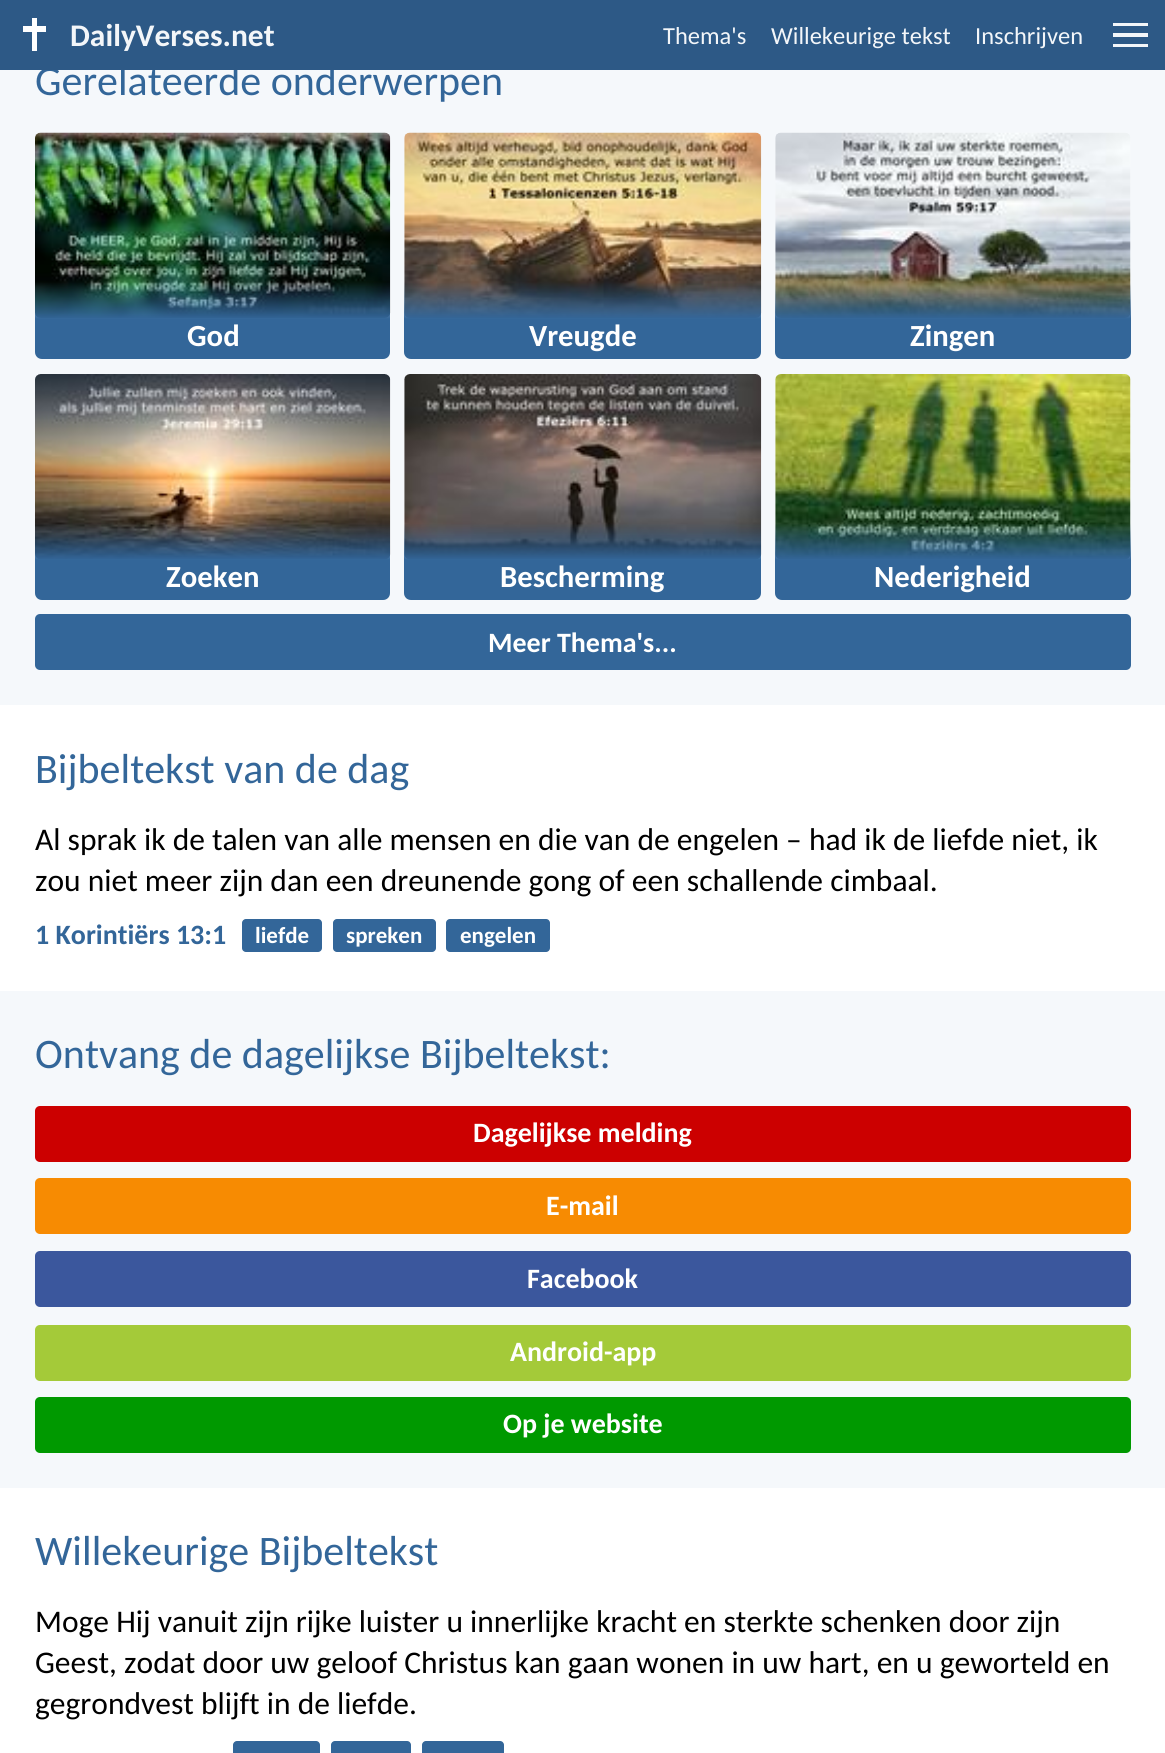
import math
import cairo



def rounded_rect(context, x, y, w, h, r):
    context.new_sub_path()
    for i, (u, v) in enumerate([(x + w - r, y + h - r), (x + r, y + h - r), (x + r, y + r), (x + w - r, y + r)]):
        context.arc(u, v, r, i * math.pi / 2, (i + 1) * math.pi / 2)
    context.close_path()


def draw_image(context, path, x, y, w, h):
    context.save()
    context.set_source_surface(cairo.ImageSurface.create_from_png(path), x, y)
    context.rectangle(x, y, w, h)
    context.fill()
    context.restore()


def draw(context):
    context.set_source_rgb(1, 1, 1)
    context.paint()
    context.set_source_rgb(245 / 255, 248 / 255, 251 / 255)
    context.rectangle(0, 70, 1165, 635)
    context.fill()
    draw_image(context, "images/1.png", 35, 132, 356, 186)
    gradient = cairo.LinearGradient(213, 282, 213, 359)
    gradient.add_color_stop_rgba(0, 51 / 255, 102 / 255, 153 / 255, 0)
    gradient.add_color_stop_rgba(0.48, 51 / 255, 102 / 255, 153 / 255, 1)
    context.set_source(gradient)
    context.new_path()
    context.move_to(35, 282)
    context.line_to(390, 282)
    context.line_to(390, 352)
    context.curve_to(390, 356, 387, 359, 383, 359)
    context.line_to(42, 359)
    context.curve_to(38, 359, 35, 356, 35, 352)
    context.close_path()
    context.fill()
    draw_image(context, "images/2.png", 404, 132, 358, 186)
    gradient = cairo.LinearGradient(583, 282, 583, 359)
    gradient.add_color_stop_rgba(0, 51 / 255, 102 / 255, 153 / 255, 0)
    gradient.add_color_stop_rgba(0.48, 51 / 255, 102 / 255, 153 / 255, 1)
    context.set_source(gradient)
    context.new_path()
    context.move_to(404, 282)
    context.line_to(761, 282)
    context.line_to(761, 352)
    context.curve_to(761, 356, 758, 359, 754, 359)
    context.line_to(411, 359)
    context.curve_to(407, 359, 404, 356, 404, 352)
    context.close_path()
    context.fill()
    draw_image(context, "images/3.png", 775, 132, 356, 186)
    gradient = cairo.LinearGradient(953, 282, 953, 359)
    gradient.add_color_stop_rgba(0, 51 / 255, 102 / 255, 153 / 255, 0)
    gradient.add_color_stop_rgba(0.48, 51 / 255, 102 / 255, 153 / 255, 1)
    context.set_source(gradient)
    context.new_path()
    context.move_to(775, 282)
    context.line_to(1131, 282)
    context.line_to(1131, 352)
    context.curve_to(1131, 356, 1128, 359, 1124, 359)
    context.line_to(782, 359)
    context.curve_to(778, 359, 775, 356, 775, 352)
    context.close_path()
    context.fill()
    draw_image(context, "images/4.png", 35, 374, 356, 186)
    gradient = cairo.LinearGradient(213, 523, 213, 600)
    gradient.add_color_stop_rgba(0, 51 / 255, 102 / 255, 153 / 255, 0)
    gradient.add_color_stop_rgba(0.48, 51 / 255, 102 / 255, 153 / 255, 1)
    context.set_source(gradient)
    context.new_path()
    context.move_to(35, 523)
    context.line_to(390, 523)
    context.line_to(390, 593)
    context.curve_to(390, 597, 387, 600, 383, 600)
    context.line_to(42, 600)
    context.curve_to(38, 600, 35, 597, 35, 593)
    context.close_path()
    context.fill()
    draw_image(context, "images/5.png", 404, 374, 358, 186)
    gradient = cairo.LinearGradient(583, 523, 583, 600)
    gradient.add_color_stop_rgba(0, 51 / 255, 102 / 255, 153 / 255, 0)
    gradient.add_color_stop_rgba(0.48, 51 / 255, 102 / 255, 153 / 255, 1)
    context.set_source(gradient)
    context.new_path()
    context.move_to(404, 523)
    context.line_to(761, 523)
    context.line_to(761, 593)
    context.curve_to(761, 597, 758, 600, 754, 600)
    context.line_to(411, 600)
    context.curve_to(407, 600, 404, 597, 404, 593)
    context.close_path()
    context.fill()
    draw_image(context, "images/6.png", 775, 374, 356, 186)
    gradient = cairo.LinearGradient(953, 523, 953, 600)
    gradient.add_color_stop_rgba(0, 51 / 255, 102 / 255, 153 / 255, 0)
    gradient.add_color_stop_rgba(0.48, 51 / 255, 102 / 255, 153 / 255, 1)
    context.set_source(gradient)
    context.new_path()
    context.move_to(775, 523)
    context.line_to(1131, 523)
    context.line_to(1131, 593)
    context.curve_to(1131, 597, 1128, 600, 1124, 600)
    context.line_to(782, 600)
    context.curve_to(778, 600, 775, 597, 775, 593)
    context.close_path()
    context.fill()
    context.set_source_rgb(51 / 255, 102 / 255, 153 / 255)
    rounded_rect(context, 35, 614, 1096, 56, 5)
    context.fill()
    rounded_rect(context, 242, 919, 80, 33, 4)
    context.fill()
    rounded_rect(context, 333, 919, 103, 33, 4)
    context.fill()
    rounded_rect(context, 446, 919, 104, 33, 4)
    context.fill()
    context.set_source_rgb(245 / 255, 248 / 255, 251 / 255)
    context.rectangle(0, 991, 1165, 497)
    context.fill()
    context.set_source_rgb(204 / 255, 0, 0)
    rounded_rect(context, 35, 1106, 1096, 56, 5)
    context.fill()
    context.set_source_rgb(247 / 255, 139 / 255, 2 / 255)
    rounded_rect(context, 35, 1178, 1096, 56, 5)
    context.fill()
    context.set_source_rgb(59 / 255, 87 / 255, 157 / 255)
    rounded_rect(context, 35, 1251, 1096, 56, 5)
    context.fill()
    context.set_source_rgb(164 / 255, 202 / 255, 57 / 255)
    rounded_rect(context, 35, 1325, 1096, 56, 5)
    context.fill()
    context.set_source_rgb(0, 153 / 255, 0)
    rounded_rect(context, 35, 1397, 1096, 56, 5)
    context.fill()
    context.set_source_rgb(51 / 255, 102 / 255, 153 / 255)
    rounded_rect(context, 233, 1741, 87, 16, 4)
    context.fill()
    rounded_rect(context, 331, 1741, 80, 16, 4)
    context.fill()
    rounded_rect(context, 422, 1741, 82, 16, 4)
    context.fill()
    context.select_font_face("Carlito")
    context.set_font_size(42)
    context.move_to(35, 95)
    context.show_text("Gerelateerde onderwerpen")
    context.set_source_rgb(45 / 255, 89 / 255, 134 / 255)
    context.rectangle(0, 0, 1165, 70)
    context.fill()
    context.set_source_rgb(243 / 255, 246 / 255, 249 / 255)
    context.rectangle(1113, 44, 35, 3)
    context.fill()
    context.rectangle(1113, 33, 35, 4)
    context.fill()
    context.rectangle(1113, 23, 35, 3)
    context.fill()
    context.set_source_rgb(1, 1, 1)
    context.rectangle(32, 18, 5, 33)
    context.fill()
    context.rectangle(23, 26, 23, 6)
    context.fill()
    context.set_font_size(24.5)
    context.set_source_rgb(243 / 255, 246 / 255, 249 / 255)
    context.move_to(975, 44)
    context.show_text("Inschrijven")
    context.move_to(771, 44)
    context.show_text("Willekeurige tekst")
    context.move_to(663, 44)
    context.show_text("Thema's")
    context.select_font_face("Carlito", cairo.FontSlant.NORMAL, cairo.FontWeight.BOLD)
    context.set_font_size(31.5)
    context.move_to(70, 46)
    context.show_text("DailyVerses.net")
    context.set_font_size(30.75)
    context.set_source_rgb(1, 1, 1)
    context.move_to(187, 346)
    context.show_text("God")
    context.move_to(529, 346)
    context.show_text("Vreugde")
    context.move_to(910, 346)
    context.show_text("Zingen")
    context.move_to(166, 587)
    context.show_text("Zoeken")
    context.move_to(500, 587)
    context.show_text("Bescherming")
    context.move_to(874, 587)
    context.show_text("Nederigheid")
    context.set_font_size(28)
    context.move_to(488, 652)
    context.show_text("Meer Thema's...")
    context.select_font_face("Carlito")
    context.set_font_size(42)
    context.set_source_rgb(51 / 255, 102 / 255, 153 / 255)
    context.move_to(35, 783)
    context.show_text("Bijbeltekst van de dag")
    context.set_font_size(31.5)
    context.set_source_rgb(0, 0, 0)
    context.move_to(35, 850)
    context.show_text("Al sprak ik de talen van alle mensen en die van de engelen – had ik de liefde niet, ik")
    context.move_to(35, 891)
    context.show_text("zou niet meer zijn dan een dreunende gong of een schallende cimbaal.")
    context.select_font_face("Carlito", cairo.FontSlant.NORMAL, cairo.FontWeight.BOLD)
    context.set_font_size(28)
    context.set_source_rgb(51 / 255, 102 / 255, 153 / 255)
    context.move_to(35, 944)
    context.show_text("1 Korintiërs 13:1")
    context.set_font_size(23)
    context.set_source_rgb(1, 1, 1)
    context.move_to(255, 943)
    context.show_text("liefde")
    context.move_to(346, 943)
    context.show_text("spreken")
    context.move_to(460, 943)
    context.show_text("engelen")
    context.select_font_face("Carlito")
    context.set_font_size(42)
    context.set_source_rgb(51 / 255, 102 / 255, 153 / 255)
    context.move_to(35, 1068)
    context.show_text("Ontvang de dagelijkse Bijbeltekst:")
    context.select_font_face("Carlito", cairo.FontSlant.NORMAL, cairo.FontWeight.BOLD)
    context.set_font_size(28)
    context.set_source_rgb(1, 1, 1)
    context.move_to(473, 1142)
    context.show_text("Dagelijkse melding")
    context.move_to(546, 1215)
    context.show_text("E-mail")
    context.move_to(527, 1288)
    context.show_text("Facebook")
    context.move_to(510, 1361)
    context.show_text("Android-app")
    context.move_to(503, 1433)
    context.show_text("Op je website")
    context.select_font_face("Carlito")
    context.set_font_size(42)
    context.set_source_rgb(51 / 255, 102 / 255, 153 / 255)
    context.move_to(35, 1565)
    context.show_text("Willekeurige Bijbeltekst")
    context.set_font_size(31.5)
    context.set_source_rgb(0, 0, 0)
    context.move_to(35, 1632)
    context.show_text("Moge Hij vanuit zijn rijke luister u innerlijke kracht en sterkte schenken door zijn")
    context.move_to(35, 1673)
    context.show_text("Geest, zodat door uw geloof Christus kan gaan wonen in uw hart, en u geworteld en")
    context.move_to(35, 1714)
    context.show_text("gegrondvest blijft in de liefde.")


surface = cairo.ImageSurface(cairo.Format.RGB24, 1165, 1753)
context = cairo.Context(surface)
options = cairo.FontOptions()
options.set_hint_metrics(cairo.HintMetrics.OFF)
options.set_hint_style(cairo.HintStyle.NONE)
context.set_font_options(options)
context.set_miter_limit(4)
draw(context)
surface.write_to_png("out.png")
